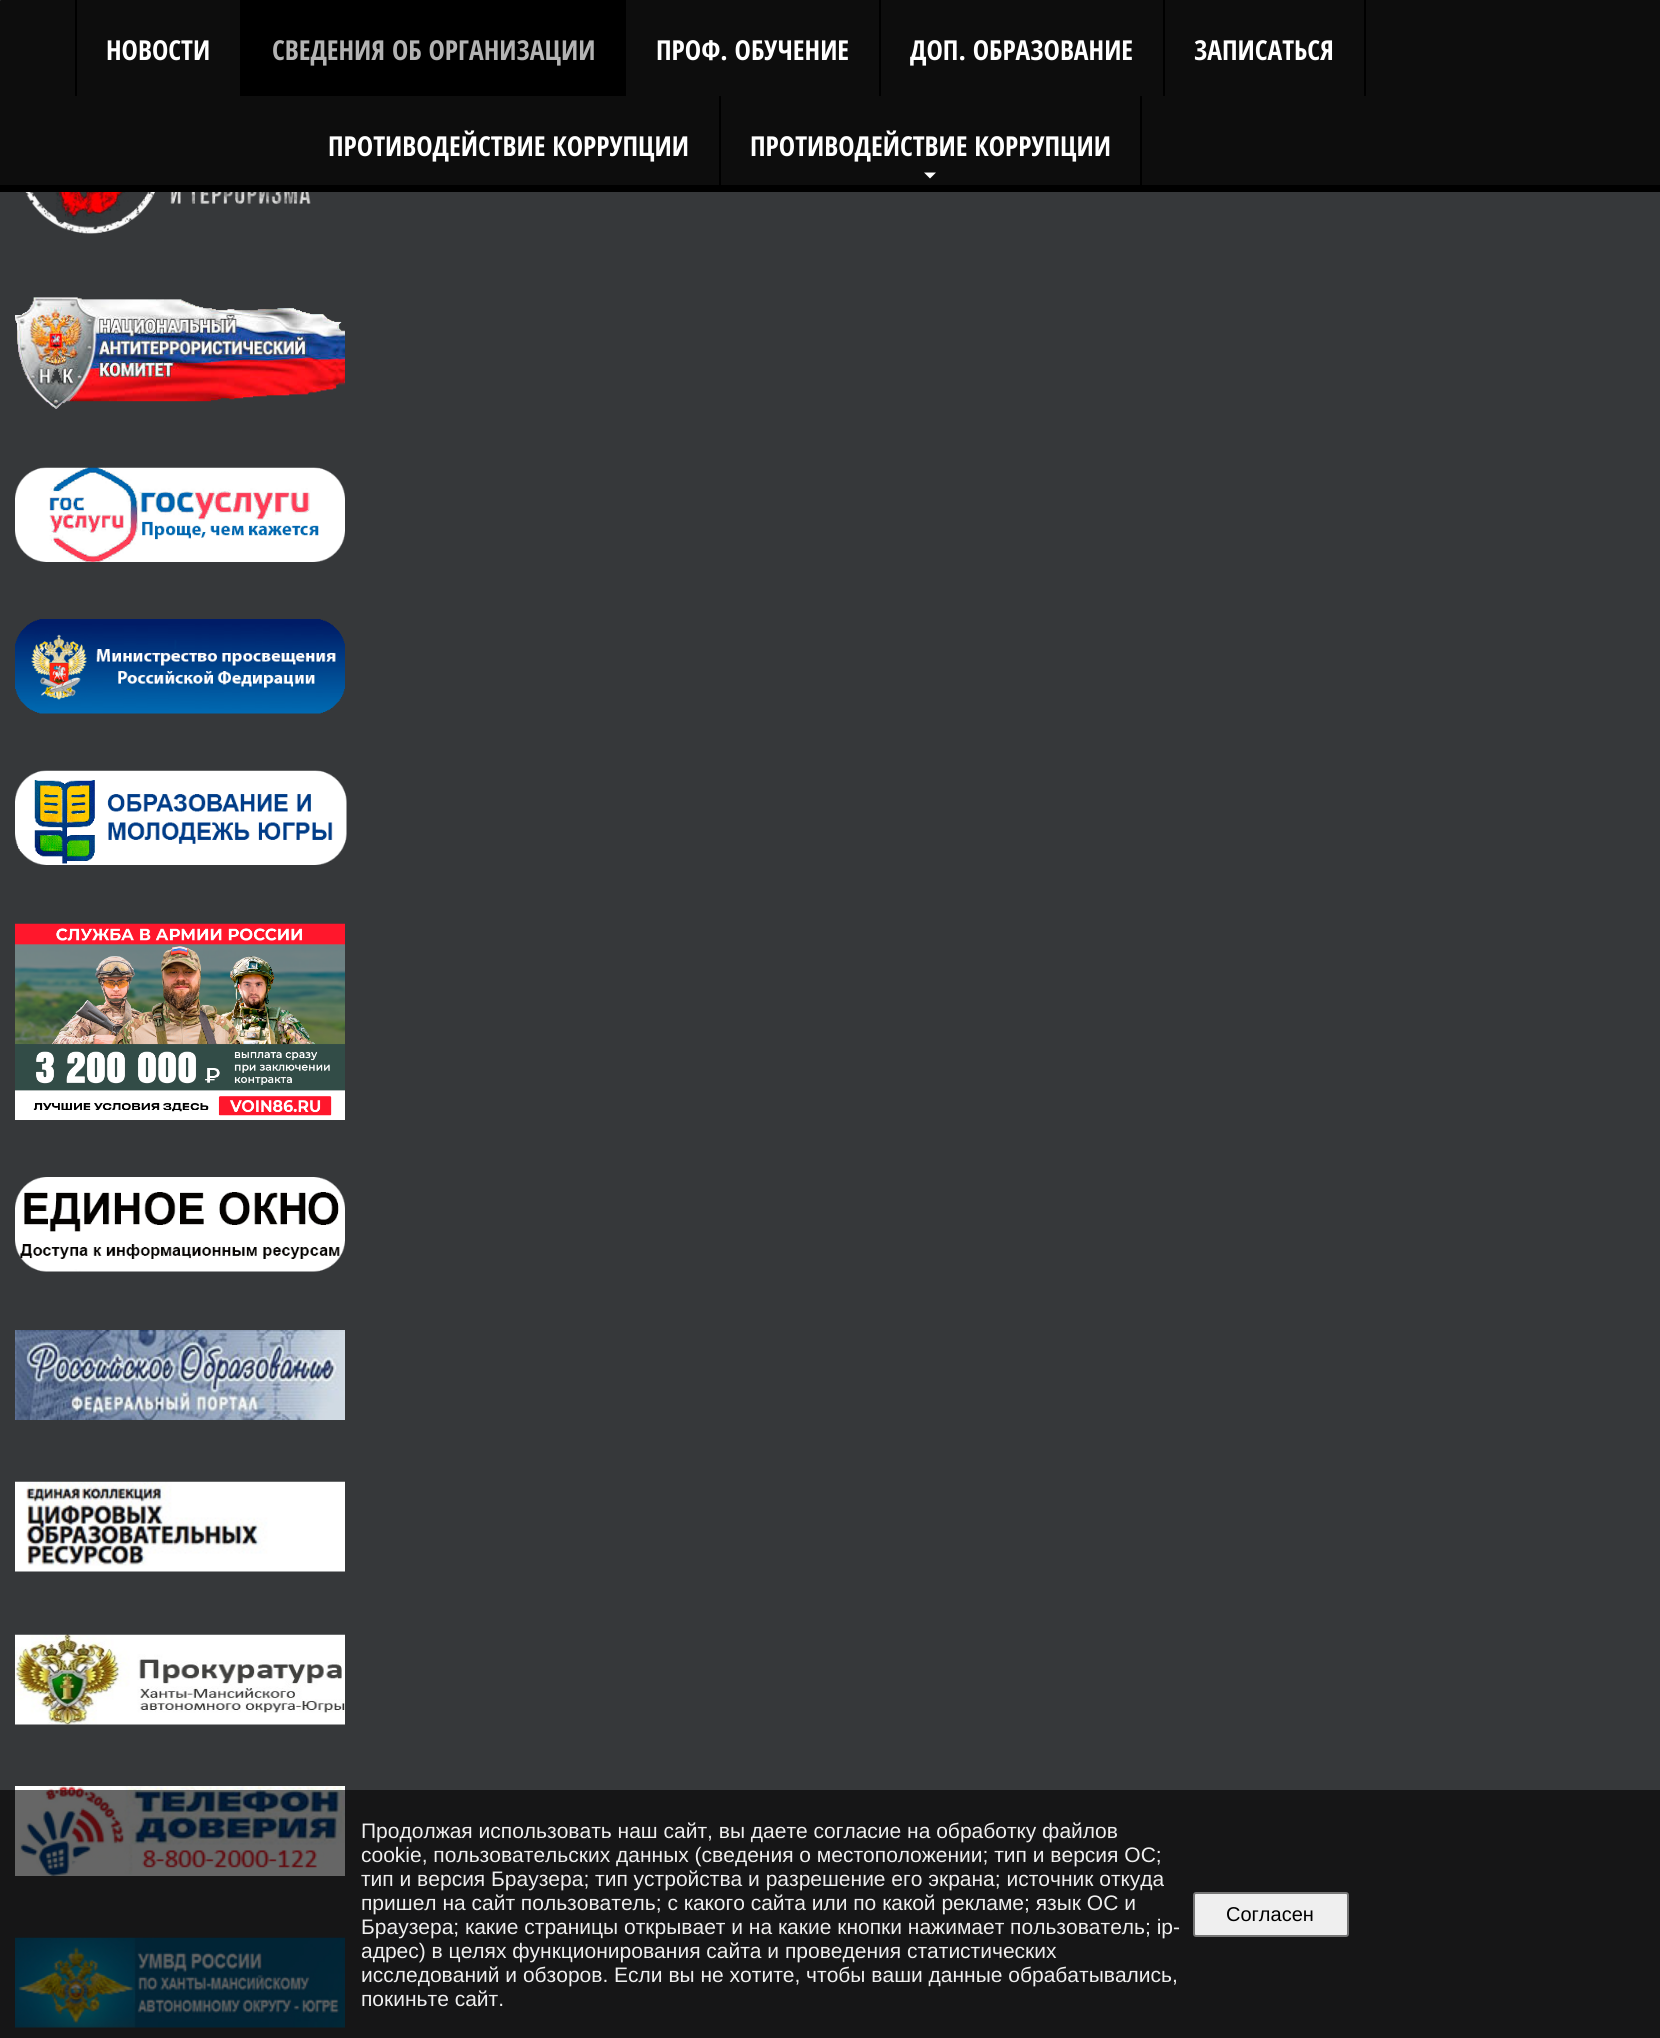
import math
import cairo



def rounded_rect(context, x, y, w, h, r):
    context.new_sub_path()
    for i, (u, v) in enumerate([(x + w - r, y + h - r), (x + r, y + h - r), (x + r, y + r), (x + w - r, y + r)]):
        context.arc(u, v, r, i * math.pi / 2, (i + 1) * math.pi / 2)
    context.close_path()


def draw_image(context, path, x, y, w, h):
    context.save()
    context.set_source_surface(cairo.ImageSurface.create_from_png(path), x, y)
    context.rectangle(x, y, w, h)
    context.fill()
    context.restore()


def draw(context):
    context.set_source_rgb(54 / 255, 56 / 255, 58 / 255)
    context.paint()
    context.set_source_rgb(22 / 255, 22 / 255, 23 / 255)
    context.rectangle(0, 1790, 1660, 248)
    context.fill()
    context.set_source_rgb(13 / 255, 13 / 255, 13 / 255)
    rounded_rect(context, 0, 0, 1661, 192, 1.5)
    context.fill()
    context.set_source_rgb(0, 0, 0)
    context.rectangle(240, 0, 2, 96)
    context.fill()
    context.rectangle(75, 0, 2, 96)
    context.fill()
    context.rectangle(242, 0, 384, 96)
    context.fill()
    context.rectangle(879, 0, 2, 96)
    context.fill()
    context.rectangle(1163, 0, 2, 96)
    context.fill()
    context.rectangle(1364, 0, 2, 96)
    context.fill()
    context.rectangle(0, 185, 1660, 7)
    context.fill()
    context.rectangle(719, 96, 2, 96)
    context.fill()
    context.rectangle(1140, 96, 2, 96)
    context.fill()
    context.set_source_rgb(1, 1, 1)
    context.new_path()
    context.move_to(924, 172.5)
    context.line_to(936, 172.5)
    context.line_to(930, 178.5)
    context.close_path()
    context.fill()
    draw_image(context, "images/1.png", 25, 192, 286, 42)
    draw_image(context, "images/2.png", 15, 297, 330, 112)
    draw_image(context, "images/3.png", 15, 467, 330, 95)
    draw_image(context, "images/4.png", 15, 619, 330, 95)
    draw_image(context, "images/5.png", 15, 770, 332, 95)
    draw_image(context, "images/6.png", 15, 923, 330, 197)
    draw_image(context, "images/7.png", 15, 1177, 330, 95)
    draw_image(context, "images/8.png", 15, 1330, 330, 90)
    draw_image(context, "images/9.png", 15, 1481, 330, 91)
    draw_image(context, "images/10.png", 15, 1634, 330, 91)
    draw_image(context, "images/11.png", 15, 1786, 330, 90)
    draw_image(context, "images/12.png", 15, 1937, 330, 91)
    context.set_source_rgb(239 / 255, 239 / 255, 239 / 255)
    rounded_rect(context, 1194, 1893, 154, 43, 2)
    context.fill_preserve()
    context.set_source_rgb(118 / 255, 118 / 255, 118 / 255)
    context.stroke()
    context.select_font_face("Open Sans Condensed", cairo.FontSlant.NORMAL, cairo.FontWeight.BOLD)
    context.set_font_size(27.5)
    context.set_source_rgb(1, 1, 1)
    context.move_to(106, 60)
    context.show_text("НОВОСТИ")
    context.set_source_rgb(179 / 255, 179 / 255, 179 / 255)
    context.move_to(272, 60)
    context.show_text("СВЕДЕНИЯ ОБ ОРГАНИЗАЦИИ")
    context.set_source_rgb(1, 1, 1)
    context.move_to(656, 60)
    context.show_text("ПРОФ. ОБУЧЕНИЕ")
    context.move_to(910, 60)
    context.show_text("ДОП. ОБРАЗОВАНИЕ")
    context.move_to(1194, 60)
    context.show_text("ЗАПИСАТЬСЯ")
    context.move_to(328, 156)
    context.show_text("ПРОТИВОДЕЙСТВИЕ КОРРУПЦИИ")
    context.move_to(750, 156)
    context.show_text("ПРОТИВОДЕЙСТВИЕ КОРРУПЦИИ")
    context.select_font_face("Liberation Sans")
    context.set_font_size(21)
    context.set_source_rgb(239 / 255, 239 / 255, 239 / 255)
    context.move_to(361, 1838)
    context.show_text("Продолжая использовать наш сайт, вы даете согласие на обработку файлов")
    context.move_to(361, 1862)
    context.show_text("cookie, пользовательских данных (сведения о местоположении; тип и версия ОС;")
    context.move_to(361, 1886)
    context.show_text("тип и версия Браузера; тип устройства и разрешение его экрана; источник откуда")
    context.move_to(361, 1910)
    context.show_text("пришел на сайт пользователь; с какого сайта или по какой рекламе; язык ОС и")
    context.move_to(361, 1934)
    context.show_text("Браузера; какие страницы открывает и на какие кнопки нажимает пользователь; ip-")
    context.move_to(361, 1958)
    context.show_text("адрес) в целях функционирования сайта и проведения статистических")
    context.move_to(361, 1982)
    context.show_text("исследований и обзоров. Если вы не хотите, чтобы ваши данные обрабатывались,")
    context.move_to(361, 2006)
    context.show_text("покиньте сайт.")
    context.set_font_size(20)
    context.set_source_rgb(0, 0, 0)
    context.move_to(1226, 1921)
    context.show_text("Согласен")


surface = cairo.ImageSurface(cairo.Format.RGB24, 1660, 2038)
context = cairo.Context(surface)
options = cairo.FontOptions()
options.set_hint_metrics(cairo.HintMetrics.OFF)
options.set_hint_style(cairo.HintStyle.NONE)
context.set_font_options(options)
context.set_miter_limit(4)
draw(context)
surface.write_to_png("out.png")
